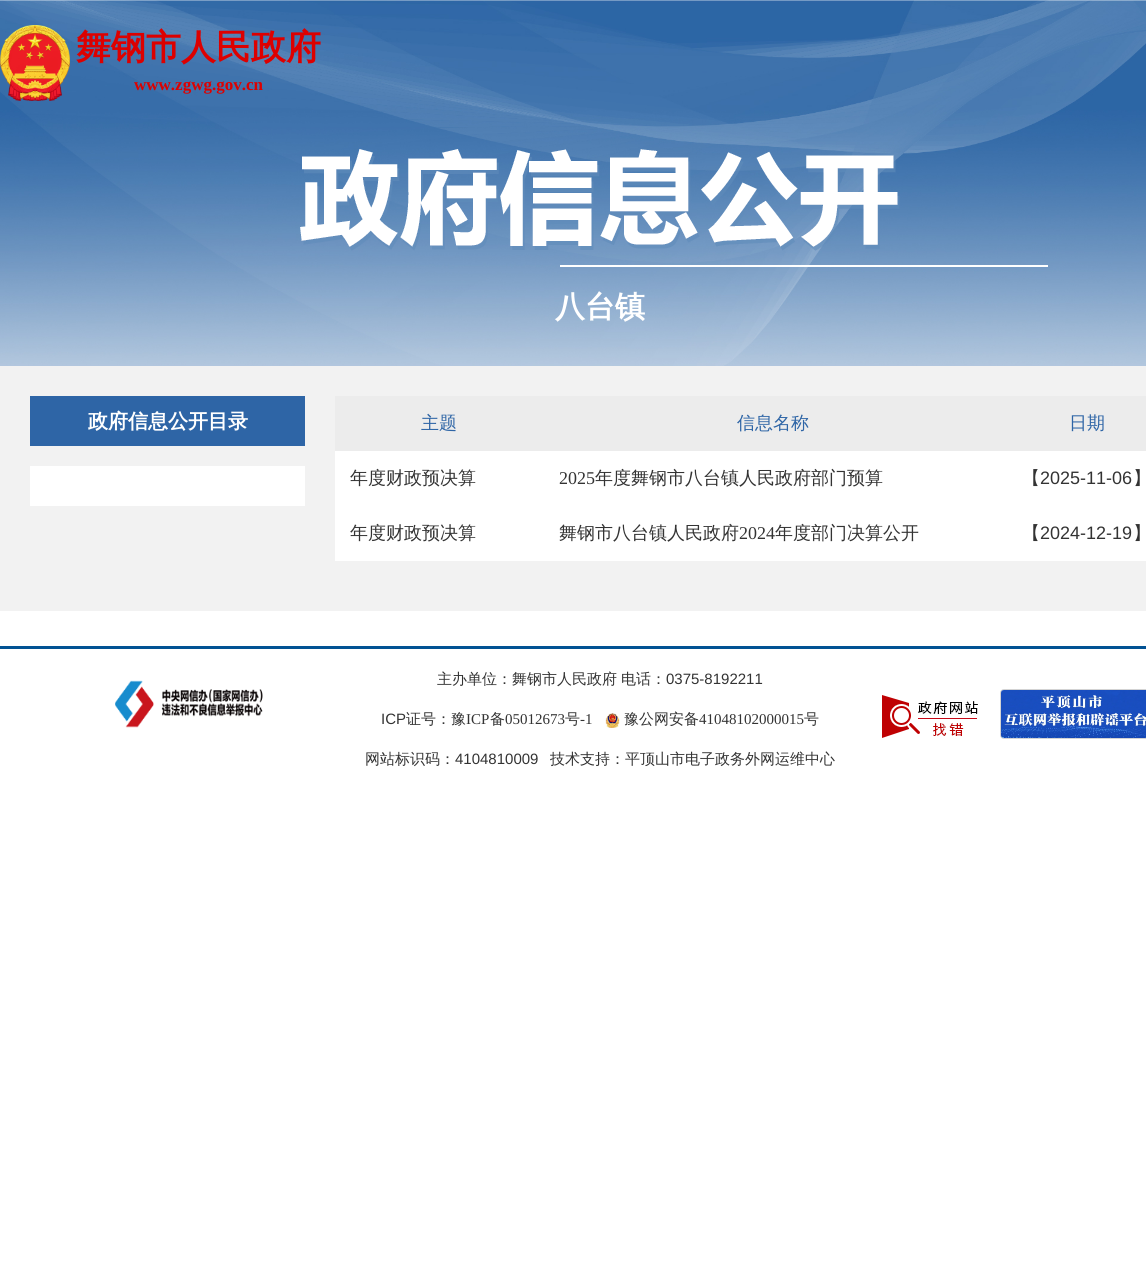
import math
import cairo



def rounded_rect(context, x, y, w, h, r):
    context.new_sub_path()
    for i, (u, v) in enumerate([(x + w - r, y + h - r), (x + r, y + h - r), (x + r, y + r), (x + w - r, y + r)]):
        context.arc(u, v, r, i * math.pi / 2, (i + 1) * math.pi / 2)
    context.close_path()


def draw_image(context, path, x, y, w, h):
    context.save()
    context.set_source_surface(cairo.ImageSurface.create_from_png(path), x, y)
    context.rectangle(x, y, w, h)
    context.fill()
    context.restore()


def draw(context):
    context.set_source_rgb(1, 1, 1)
    context.paint()
    draw_image(context, "images/1.png", 0, 0, 1146, 366)
    draw_image(context, "images/2.png", 0, 25, 70, 76)
    draw_image(context, "images/3.png", 300, 149, 600, 102)
    context.set_source_rgb(1, 1, 1)
    context.rectangle(560, 265, 488, 2)
    context.fill()
    context.set_source_rgb(242 / 255, 242 / 255, 242 / 255)
    context.rectangle(0, 366, 1146, 245)
    context.fill()
    context.set_source_rgb(46 / 255, 101 / 255, 166 / 255)
    context.rectangle(30, 396, 275, 50)
    context.fill()
    context.set_source_rgb(1, 1, 1)
    context.rectangle(30, 466, 275, 40)
    context.fill()
    context.rectangle(335, 451, 811, 110)
    context.fill()
    context.set_source_rgb(236 / 255, 236 / 255, 236 / 255)
    context.rectangle(335, 396, 811, 55)
    context.fill()
    context.set_source_rgb(1 / 255, 82 / 255, 147 / 255)
    context.rectangle(0, 646, 1146, 3)
    context.fill()
    draw_image(context, "images/4.png", 115, 680, 148, 48)
    draw_image(context, "images/5.png", 605, 713, 15, 15)
    draw_image(context, "images/6.png", 882, 695, 96, 43)
    rounded_rect(context, 1000.5, 689.5, 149, 49, 3.5)
    context.set_source_rgb(211 / 255, 211 / 255, 211 / 255)
    context.set_line_width(1)
    context.stroke()
    draw_image(context, "images/7.png", 1001, 690, 145, 48)
    context.select_font_face("WenQuanYi Zen Hei", cairo.FontSlant.NORMAL, cairo.FontWeight.BOLD)
    context.set_font_size(35)
    context.set_source_rgb(221 / 255, 0, 0)
    context.move_to(76, 59)
    context.show_text("舞钢市人民政府")
    context.select_font_face("Liberation Serif", cairo.FontSlant.NORMAL, cairo.FontWeight.BOLD)
    context.set_font_size(17)
    context.move_to(134, 90)
    context.show_text("www.zgwg.gov.cn")
    context.select_font_face("WenQuanYi Zen Hei", cairo.FontSlant.NORMAL, cairo.FontWeight.BOLD)
    context.set_font_size(30)
    context.set_source_rgb(1, 1, 1)
    context.move_to(555, 317)
    context.show_text("八台镇")
    context.set_font_size(20)
    context.move_to(88, 428)
    context.show_text("政府信息公开目录")
    context.select_font_face("WenQuanYi Zen Hei Medium")
    context.set_font_size(18)
    context.set_source_rgb(46 / 255, 101 / 255, 166 / 255)
    context.move_to(421, 429)
    context.show_text("主题")
    context.move_to(737, 429)
    context.show_text("信息名称")
    context.move_to(1069, 429)
    context.show_text("日期")
    context.set_source_rgb(51 / 255, 51 / 255, 51 / 255)
    context.move_to(350, 484)
    context.show_text("年度财政预决算")
    context.select_font_face("Liberation Serif")
    context.move_to(559, 484)
    context.show_text("2025")
    context.select_font_face("WenQuanYi Zen Hei Medium")
    context.move_to(595, 484)
    context.show_text("年度舞钢市八台镇人民政府部门预算")
    context.move_to(1022, 484)
    context.show_text("【")
    context.select_font_face("Liberation Sans")
    context.move_to(1040, 484)
    context.show_text("2025-11-06")
    context.select_font_face("WenQuanYi Zen Hei Medium")
    context.move_to(1133, 484)
    context.show_text("】")
    context.move_to(350, 539)
    context.show_text("年度财政预决算")
    context.move_to(559, 539)
    context.show_text("舞钢市八台镇人民政府")
    context.select_font_face("Liberation Serif")
    context.move_to(739, 539)
    context.show_text("2024")
    context.select_font_face("WenQuanYi Zen Hei Medium")
    context.move_to(775, 539)
    context.show_text("年度部门决算公开")
    context.move_to(1022, 539)
    context.show_text("【")
    context.select_font_face("Liberation Sans")
    context.move_to(1040, 539)
    context.show_text("2024-12-19")
    context.select_font_face("WenQuanYi Zen Hei Medium")
    context.move_to(1133, 539)
    context.show_text("】")
    context.set_font_size(15)
    context.move_to(437, 684)
    context.show_text("主办单位：舞钢市人民政府")
    context.move_to(621, 684)
    context.show_text("电话：")
    context.select_font_face("Liberation Sans")
    context.move_to(666, 684)
    context.show_text("0375-8192211")
    context.move_to(381, 724)
    context.show_text("ICP")
    context.select_font_face("WenQuanYi Zen Hei Medium")
    context.move_to(406, 724)
    context.show_text("证号：豫")
    context.select_font_face("Liberation Serif")
    context.move_to(466, 724)
    context.show_text("ICP")
    context.select_font_face("WenQuanYi Zen Hei Medium")
    context.move_to(490, 724)
    context.show_text("备")
    context.select_font_face("Liberation Serif")
    context.move_to(505, 724)
    context.show_text("05012673")
    context.select_font_face("WenQuanYi Zen Hei Medium")
    context.move_to(565, 724)
    context.show_text("号")
    context.select_font_face("Liberation Serif")
    context.move_to(580, 724)
    context.show_text("-1")
    context.select_font_face("WenQuanYi Zen Hei Medium")
    context.move_to(624, 724)
    context.show_text("豫公网安备")
    context.select_font_face("Liberation Serif")
    context.move_to(699, 724)
    context.show_text("41048102000015")
    context.select_font_face("WenQuanYi Zen Hei Medium")
    context.move_to(804, 724)
    context.show_text("号")
    context.move_to(365, 764)
    context.show_text("网站标识码：")
    context.select_font_face("Liberation Sans")
    context.move_to(455, 764)
    context.show_text("4104810009")
    context.select_font_face("WenQuanYi Zen Hei Medium")
    context.move_to(550, 764)
    context.show_text("技术支持：平顶山市电子政务外网运维中心")


surface = cairo.ImageSurface(cairo.Format.RGB24, 1146, 1267)
context = cairo.Context(surface)
options = cairo.FontOptions()
options.set_hint_metrics(cairo.HintMetrics.OFF)
options.set_hint_style(cairo.HintStyle.NONE)
context.set_font_options(options)
context.set_miter_limit(4)
draw(context)
surface.write_to_png("out.png")
